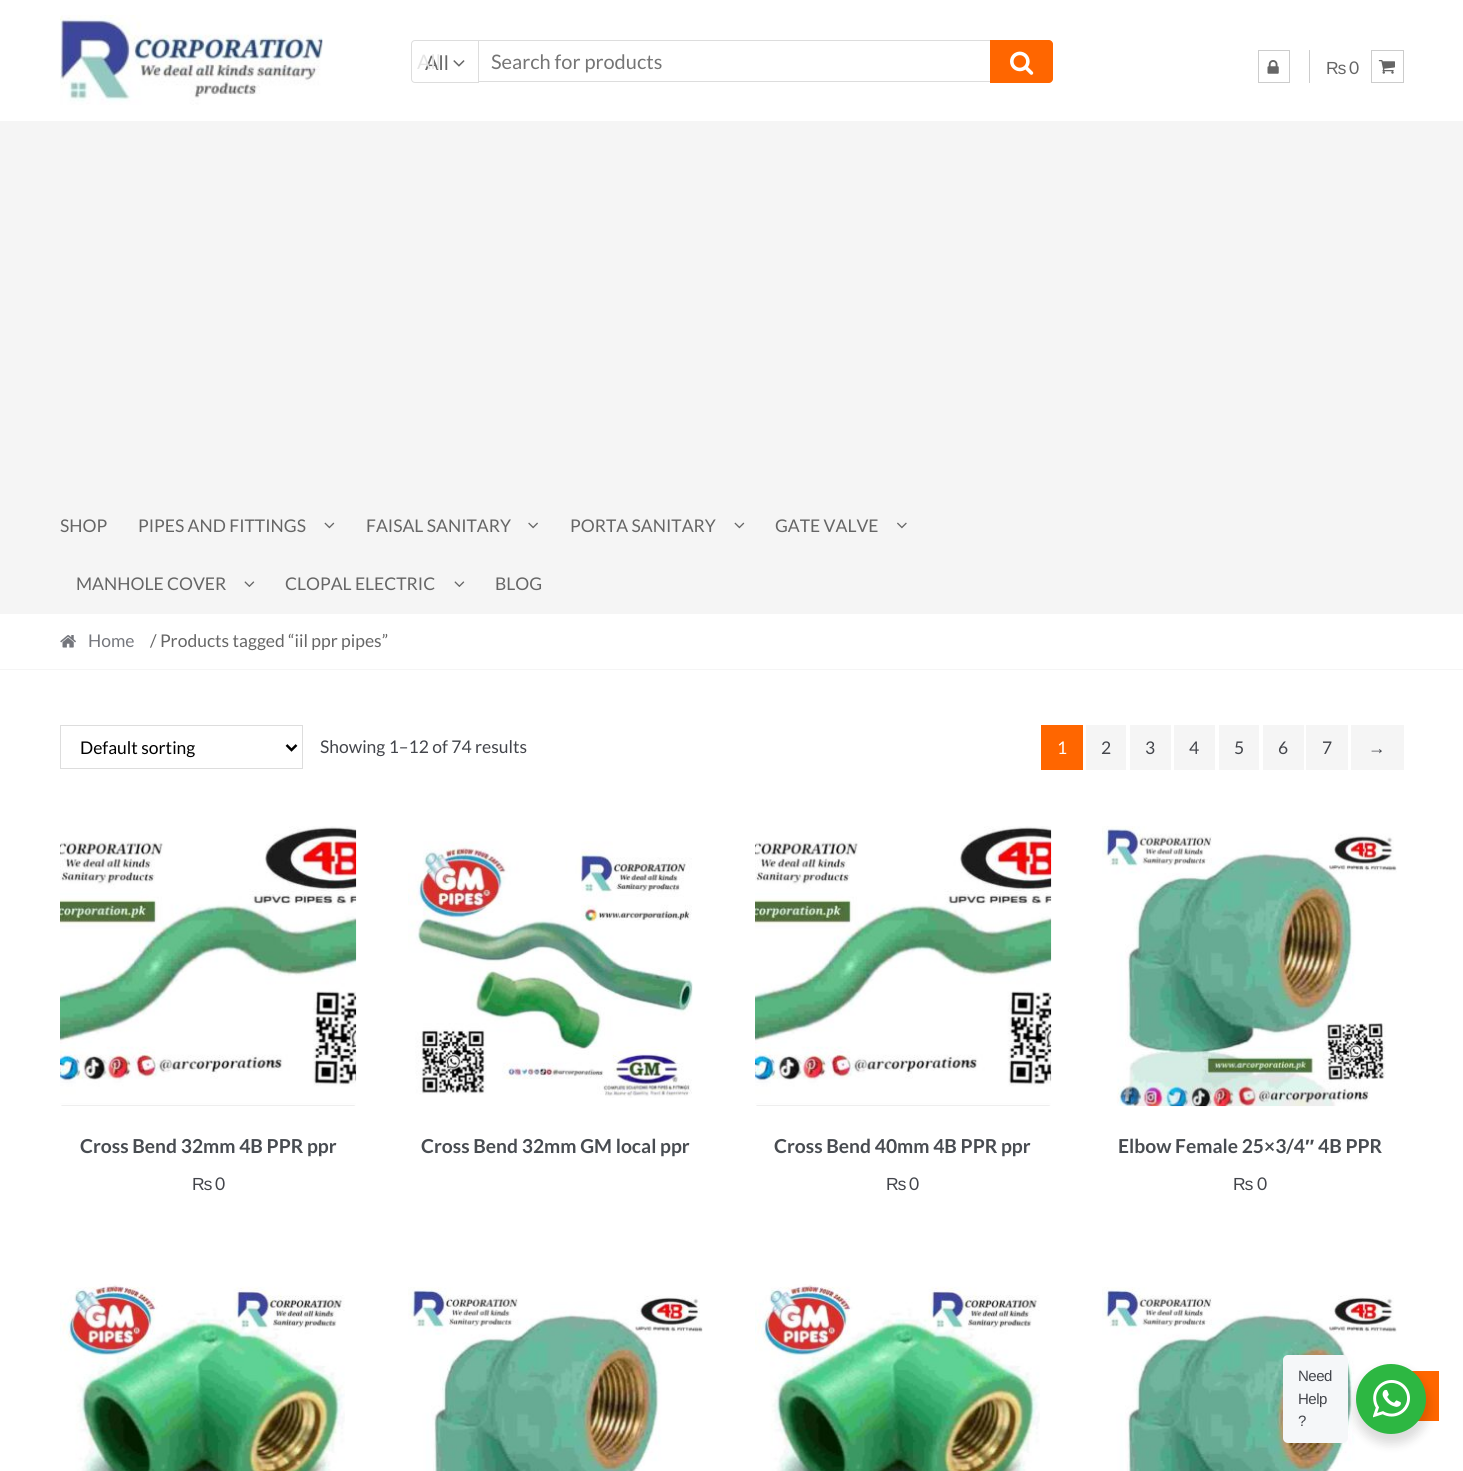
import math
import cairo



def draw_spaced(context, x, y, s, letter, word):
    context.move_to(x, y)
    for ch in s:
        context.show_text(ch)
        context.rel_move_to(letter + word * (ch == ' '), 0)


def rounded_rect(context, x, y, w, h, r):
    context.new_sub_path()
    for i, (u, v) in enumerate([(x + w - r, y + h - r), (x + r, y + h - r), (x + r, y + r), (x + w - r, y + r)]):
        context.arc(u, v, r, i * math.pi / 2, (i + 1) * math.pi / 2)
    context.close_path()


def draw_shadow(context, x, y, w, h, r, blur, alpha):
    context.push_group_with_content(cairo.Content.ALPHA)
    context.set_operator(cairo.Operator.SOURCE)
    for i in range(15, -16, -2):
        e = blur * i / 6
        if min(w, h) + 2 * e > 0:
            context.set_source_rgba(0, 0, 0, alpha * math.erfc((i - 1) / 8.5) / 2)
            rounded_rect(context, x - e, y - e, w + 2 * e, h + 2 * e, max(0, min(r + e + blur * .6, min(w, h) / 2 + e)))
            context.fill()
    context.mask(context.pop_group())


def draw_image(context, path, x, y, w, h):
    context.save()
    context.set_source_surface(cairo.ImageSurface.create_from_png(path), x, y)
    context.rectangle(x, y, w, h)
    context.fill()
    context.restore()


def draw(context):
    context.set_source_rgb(1, 1, 1)
    context.paint()
    draw_image(context, "images/1.png", 60, 15, 263, 90)
    context.new_path()
    context.move_to(415, 40.5)
    context.line_to(478.5, 40.5)
    context.line_to(478.5, 82.5)
    context.line_to(415, 82.5)
    context.curve_to(413, 82.5, 411.5, 81, 411.5, 79)
    context.line_to(411.5, 44)
    context.curve_to(411.5, 42, 413, 40.5, 415, 40.5)
    context.close_path()
    context.set_source_rgb(221 / 255, 221 / 255, 221 / 255)
    context.set_line_width(1)
    context.stroke()
    draw_image(context, "images/2.png", 453, 60, 12, 7)
    context.rectangle(479, 40, 511, 1)
    context.fill()
    context.rectangle(479, 81, 511, 1)
    context.fill()
    context.set_source_rgb(1, 102 / 255, 0)
    context.new_path()
    context.move_to(990, 40)
    context.line_to(1049, 40)
    context.curve_to(1051, 40, 1053, 42, 1053, 44)
    context.line_to(1053, 79)
    context.curve_to(1053, 81, 1051, 83, 1049, 83)
    context.line_to(990, 83)
    context.close_path()
    context.fill()
    draw_image(context, "images/3.png", 1010, 51, 24, 24)
    context.set_source_rgb(204 / 255, 204 / 255, 204 / 255)
    context.rectangle(1309, 50, 1, 33)
    context.fill()
    context.rectangle(1258.5, 50.5, 31, 32)
    context.stroke()
    draw_image(context, "images/4.png", 1267, 60, 12, 14)
    context.rectangle(1371.5, 50.5, 32, 32)
    context.stroke()
    draw_image(context, "images/5.png", 1378, 60, 17, 14)
    context.set_source_rgb(245 / 255, 245 / 255, 245 / 255)
    context.rectangle(0, 121, 1463, 493)
    context.fill()
    draw_image(context, "images/6.png", 324, 522, 11, 7)
    draw_image(context, "images/7.png", 528, 522, 10, 7)
    draw_image(context, "images/6.png", 734, 522, 11, 7)
    draw_image(context, "images/8.png", 897, 522, 10, 7)
    draw_image(context, "images/9.png", 244, 581, 11, 6)
    draw_image(context, "images/9.png", 454, 581, 11, 6)
    context.rectangle(0, 669, 1463, 1)
    context.fill()
    draw_image(context, "images/10.png", 60, 635, 16, 13)
    context.rectangle(60.5, 725.5, 242, 43)
    context.set_source_rgb(221 / 255, 221 / 255, 221 / 255)
    context.stroke()
    context.new_path()
    context.move_to(286.5, 745)
    context.line_to(291.5, 750)
    context.line_to(296.5, 745)
    context.set_source_rgb(0, 0, 0)
    context.set_line_width(2.5)
    context.stroke()
    context.set_source_rgb(1, 102 / 255, 0)
    context.rectangle(1041, 725, 42, 45)
    context.fill()
    context.set_source_rgb(245 / 255, 245 / 255, 245 / 255)
    context.rectangle(1086, 725, 40, 45)
    context.fill()
    context.rectangle(1130, 725, 41, 45)
    context.fill()
    context.rectangle(1174, 725, 41, 45)
    context.fill()
    context.rectangle(1219, 725, 40, 45)
    context.fill()
    context.rectangle(1263, 725, 41, 45)
    context.fill()
    context.rectangle(1306, 725, 42, 45)
    context.fill()
    context.rectangle(1351, 725, 53, 45)
    context.fill()
    draw_image(context, "images/11.png", 60, 826, 297, 280)
    draw_image(context, "images/12.png", 408, 841, 285, 257)
    draw_image(context, "images/13.png", 755, 826, 297, 280)
    draw_image(context, "images/14.png", 1102, 826, 295, 281)
    draw_image(context, "images/15.png", 60, 1284, 285, 187)
    draw_image(context, "images/16.png", 408, 1287, 295, 184)
    draw_image(context, "images/17.png", 755, 1284, 285, 187)
    draw_image(context, "images/18.png", 1102, 1287, 295, 184)
    context.set_source_rgb(1, 102 / 255, 0)
    context.rectangle(1412, 1371, 27, 50)
    context.fill()
    context.set_source_rgb(0, 0, 0)
    draw_shadow(context, 1354, 1369, 75, 75, 37.5, 5, 0.14)
    context.set_source_rgb(245 / 255, 247 / 255, 249 / 255)
    rounded_rect(context, 1283, 1355, 65, 88, 5)
    context.fill()
    context.set_source_rgb(45 / 255, 183 / 255, 66 / 255)
    context.arc(1391, 1399, 35, 0, 2 * math.pi)
    context.fill()
    draw_image(context, "images/19.png", 1373, 1380, 37, 38)
    context.select_font_face("Lato")
    context.set_font_size(20)
    context.set_source_rgb(102 / 255, 102 / 255, 102 / 255)
    context.move_to(425, 70)
    context.show_text("All")
    context.set_source_rgb(229 / 255, 229 / 255, 229 / 255)
    context.move_to(417, 69)
    context.show_text("All")
    context.set_source_rgb(117 / 255, 117 / 255, 117 / 255)
    context.move_to(491, 69)
    context.show_text("Search for products")
    context.select_font_face("Liberation Sans")
    context.set_font_size(17.5)
    context.set_source_rgb(102 / 255, 102 / 255, 102 / 255)
    context.move_to(1326, 74)
    context.show_text("₨")
    context.select_font_face("Lato")
    context.move_to(1349, 74)
    context.show_text("0")
    context.move_to(60, 532)
    context.show_text("SHOP")
    context.move_to(138, 532)
    context.show_text("PIPES AND FITTINGS")
    context.move_to(366, 532)
    context.show_text("FAISAL SANITARY")
    context.move_to(570, 532)
    context.show_text("PORTA SANITARY")
    context.move_to(775, 532)
    context.show_text("GATE VALVE")
    context.move_to(76, 590)
    context.show_text("MANHOLE COVER")
    context.move_to(285, 590)
    context.show_text("CLOPAL ELECTRIC")
    context.move_to(495, 590)
    context.show_text("BLOG")
    context.set_source_rgb(117 / 255, 119 / 255, 125 / 255)
    context.move_to(88, 647)
    context.show_text("Home")
    context.set_source_rgb(102 / 255, 102 / 255, 102 / 255)
    context.move_to(150, 647)
    context.show_text("/ Products tagged “iil ppr pipes”")
    context.set_source_rgb(0, 0, 0)
    context.move_to(80, 754)
    context.show_text("Default sorting")
    context.set_source_rgb(67 / 255, 69 / 255, 75 / 255)
    context.move_to(320, 753)
    context.show_text("Showing 1–12 of 74 results")
    context.set_source_rgb(1, 1, 1)
    context.move_to(1057, 754)
    context.show_text("1")
    context.set_source_rgb(67 / 255, 69 / 255, 75 / 255)
    context.move_to(1101, 754)
    context.show_text("2")
    context.move_to(1145, 754)
    context.show_text("3")
    context.move_to(1189, 754)
    context.show_text("4")
    context.move_to(1234, 754)
    context.show_text("5")
    context.move_to(1278, 754)
    context.show_text("6")
    context.move_to(1322, 754)
    context.show_text("7")
    context.select_font_face("Liberation Sans")
    context.move_to(1368, 754)
    context.show_text("→")
    context.select_font_face("Lato", cairo.FontSlant.NORMAL, cairo.FontWeight.BOLD)
    context.set_font_size(19.25)
    context.set_source_rgb(72 / 255, 76 / 255, 81 / 255)
    context.move_to(80, 1153)
    context.show_text("Cross Bend 32mm 4B PPR ppr")
    context.select_font_face("Liberation Sans")
    context.set_font_size(17.5)
    context.set_source_rgb(67 / 255, 69 / 255, 75 / 255)
    context.move_to(192, 1190)
    context.show_text("₨")
    context.select_font_face("Lato")
    context.move_to(215, 1190)
    context.show_text("0")
    context.select_font_face("Lato", cairo.FontSlant.NORMAL, cairo.FontWeight.BOLD)
    context.set_font_size(19.25)
    context.set_source_rgb(72 / 255, 76 / 255, 81 / 255)
    context.move_to(421, 1153)
    context.show_text("Cross Bend 32mm GM local ppr")
    context.move_to(774, 1153)
    context.show_text("Cross Bend 40mm 4B PPR ppr")
    context.select_font_face("Liberation Sans")
    context.set_font_size(17.5)
    context.set_source_rgb(67 / 255, 69 / 255, 75 / 255)
    context.move_to(886, 1190)
    context.show_text("₨")
    context.select_font_face("Lato")
    context.move_to(909, 1190)
    context.show_text("0")
    context.select_font_face("Lato", cairo.FontSlant.NORMAL, cairo.FontWeight.BOLD)
    context.set_font_size(19.25)
    context.set_source_rgb(72 / 255, 76 / 255, 81 / 255)
    context.move_to(1118, 1153)
    context.show_text("Elbow Female 25×3/4")
    context.select_font_face("Liberation Sans", cairo.FontSlant.NORMAL, cairo.FontWeight.BOLD)
    context.move_to(1305, 1153)
    context.show_text("″")
    context.select_font_face("Lato", cairo.FontSlant.NORMAL, cairo.FontWeight.BOLD)
    context.move_to(1318, 1153)
    context.show_text("4B PPR")
    context.select_font_face("Liberation Sans")
    context.set_font_size(17.5)
    context.set_source_rgb(67 / 255, 69 / 255, 75 / 255)
    context.move_to(1233, 1190)
    context.show_text("₨")
    context.select_font_face("Lato")
    context.move_to(1257, 1190)
    context.show_text("0")
    context.select_font_face("Liberation Sans")
    context.set_font_size(15)
    draw_spaced(context, 1298, 1381, "Need", -0.5, 0)
    draw_spaced(context, 1298, 1404, "Help", -0.5, 0)
    draw_spaced(context, 1298, 1426, "?", -0.5, 0)


surface = cairo.ImageSurface(cairo.Format.RGB24, 1463, 1471)
context = cairo.Context(surface)
options = cairo.FontOptions()
options.set_hint_metrics(cairo.HintMetrics.OFF)
options.set_hint_style(cairo.HintStyle.NONE)
context.set_font_options(options)
context.set_miter_limit(4)
draw(context)
surface.write_to_png("out.png")
